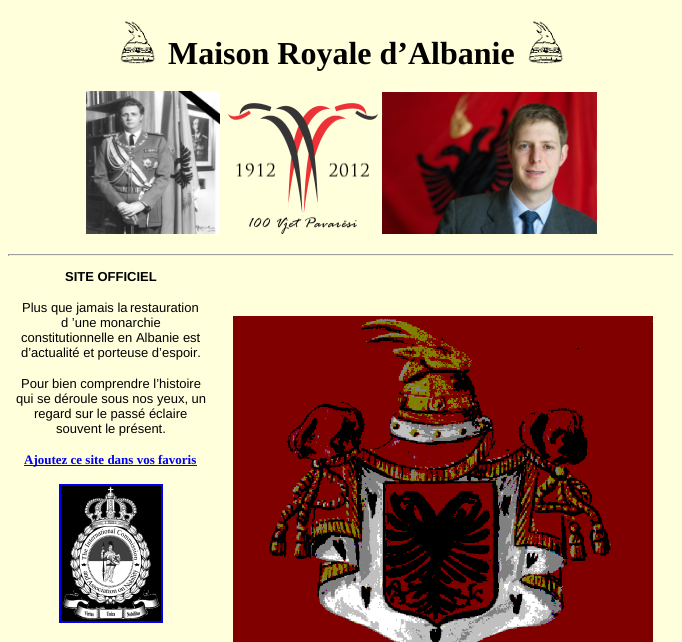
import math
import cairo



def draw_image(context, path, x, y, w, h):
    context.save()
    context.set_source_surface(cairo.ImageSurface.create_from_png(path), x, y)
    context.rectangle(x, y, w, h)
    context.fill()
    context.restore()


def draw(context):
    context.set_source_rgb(1, 1, 219 / 255)
    context.paint()
    draw_image(context, "images/1.png", 120, 21, 35, 43)
    draw_image(context, "images/2.png", 528, 21, 35, 43)
    draw_image(context, "images/3.png", 86, 91, 134, 143)
    draw_image(context, "images/4.png", 228, 103, 150, 131)
    draw_image(context, "images/5.png", 382, 92, 215, 142)
    context.set_source_rgb(159 / 255, 159 / 255, 159 / 255)
    context.rectangle(8, 254, 666, 1)
    context.fill()
    context.set_source_rgb(238 / 255, 238 / 255, 238 / 255)
    context.rectangle(673, 254, 1, 2)
    context.fill()
    context.rectangle(8, 255, 666, 1)
    context.fill()
    context.set_source_rgb(159 / 255, 159 / 255, 159 / 255)
    context.rectangle(8, 254, 1, 2)
    context.fill()
    context.set_source_rgb(0, 0, 238 / 255)
    context.rectangle(24, 465, 173, 1)
    context.fill()
    context.rectangle(60, 485, 102, 137)
    context.stroke()
    draw_image(context, "images/6.png", 61, 486, 100, 135)
    draw_image(context, "images/7.png", 233, 316, 420, 326)
    context.select_font_face("Liberation Serif", cairo.FontSlant.NORMAL, cairo.FontWeight.BOLD)
    context.set_font_size(32)
    context.set_source_rgb(0, 0, 0)
    context.move_to(168, 64)
    context.show_text("Maison Royale d’Albanie")
    context.select_font_face("Liberation Sans", cairo.FontSlant.NORMAL, cairo.FontWeight.BOLD)
    context.set_font_size(13)
    context.move_to(65, 281)
    context.show_text("SITE OFFICIEL")
    context.select_font_face("Liberation Sans")
    context.move_to(22, 312)
    context.show_text("Plus que jamais la")
    context.move_to(130, 312)
    context.show_text("restauration")
    context.move_to(61, 327)
    context.show_text("d ’une monarchie")
    context.move_to(21, 342)
    context.show_text("constitutionnelle en Albanie est")
    context.move_to(21, 357)
    context.show_text("d’actualité et porteuse d’espoir.")
    context.move_to(21, 388)
    context.show_text("Pour bien comprendre l’histoire")
    context.move_to(16, 403)
    context.show_text("qui se déroule sous nos yeux, un")
    context.move_to(34, 418)
    context.show_text("regard sur le passé éclaire")
    context.move_to(56, 433)
    context.show_text("souvent le présent.")
    context.select_font_face("Liberation Serif", cairo.FontSlant.NORMAL, cairo.FontWeight.BOLD)
    context.set_source_rgb(0, 0, 238 / 255)
    context.move_to(24, 464)
    context.show_text("Ajoutez ce site dans vos favoris")


surface = cairo.ImageSurface(cairo.Format.RGB24, 682, 642)
context = cairo.Context(surface)
options = cairo.FontOptions()
options.set_hint_metrics(cairo.HintMetrics.OFF)
options.set_hint_style(cairo.HintStyle.NONE)
context.set_font_options(options)
context.set_miter_limit(4)
draw(context)
surface.write_to_png("out.png")
